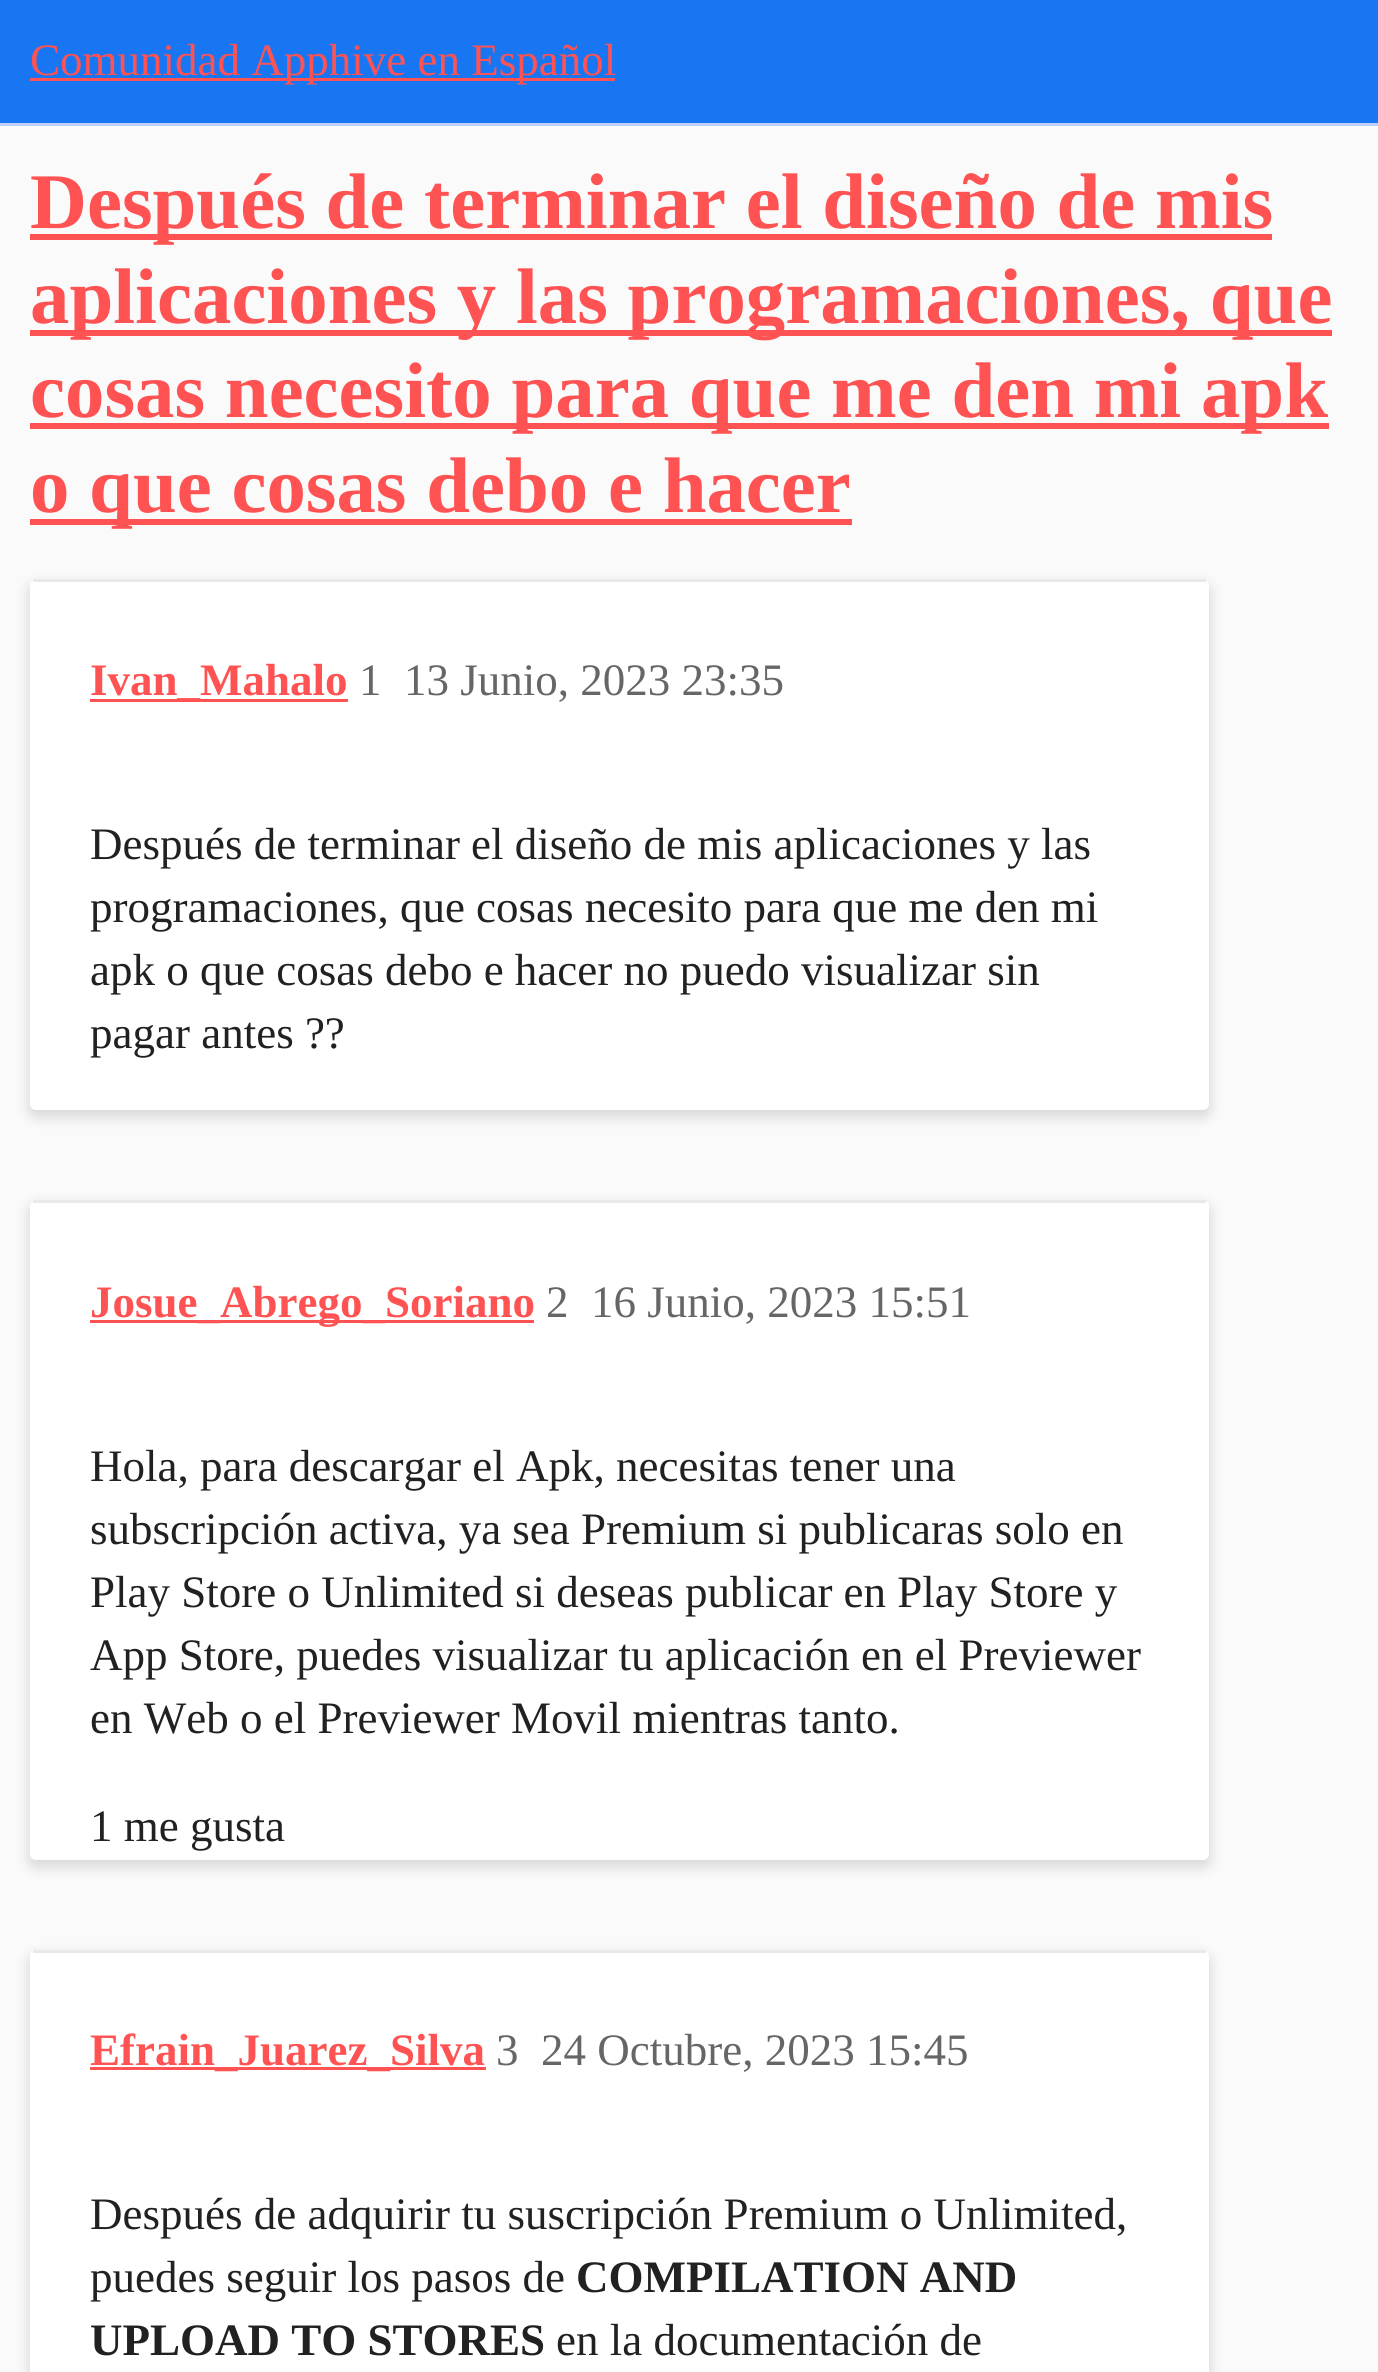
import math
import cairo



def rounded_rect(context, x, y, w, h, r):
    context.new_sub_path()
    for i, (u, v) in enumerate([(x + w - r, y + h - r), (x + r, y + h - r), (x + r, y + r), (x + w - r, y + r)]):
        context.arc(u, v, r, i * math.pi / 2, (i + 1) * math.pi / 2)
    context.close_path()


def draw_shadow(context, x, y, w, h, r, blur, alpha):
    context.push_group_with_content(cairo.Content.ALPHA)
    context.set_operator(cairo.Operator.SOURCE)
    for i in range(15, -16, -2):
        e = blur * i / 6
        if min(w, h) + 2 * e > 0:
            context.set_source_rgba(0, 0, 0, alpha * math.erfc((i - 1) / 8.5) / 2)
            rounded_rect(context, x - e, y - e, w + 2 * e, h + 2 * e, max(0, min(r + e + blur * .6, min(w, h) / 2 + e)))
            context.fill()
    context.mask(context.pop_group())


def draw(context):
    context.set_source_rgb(250 / 255, 250 / 255, 250 / 255)
    context.paint()
    context.set_source_rgb(25 / 255, 118 / 255, 242 / 255)
    context.rectangle(0, 0, 1378, 123)
    context.fill()
    context.set_source_rgb(190 / 255, 205 / 255, 249 / 255)
    context.rectangle(0, 123, 1378, 3)
    context.fill()
    context.set_source_rgb(1, 82 / 255, 82 / 255)
    context.rectangle(30, 78, 585, 3)
    context.fill()
    context.rectangle(30, 234, 1242, 6)
    context.fill()
    context.rectangle(30, 330, 1302, 6)
    context.fill()
    context.rectangle(30, 423, 1299, 6)
    context.fill()
    context.rectangle(30, 519, 822, 6)
    context.fill()
    context.set_source_rgb(0, 0, 0)
    draw_shadow(context, 30, 585, 1179, 531, 6, 7.5, 0.16)
    context.set_source_rgb(1, 1, 1)
    rounded_rect(context, 30, 579, 1179, 531, 6)
    context.fill()
    context.set_source_rgb(233 / 255, 233 / 255, 233 / 255)
    context.rectangle(33, 579, 1173, 3)
    context.fill()
    context.set_source_rgb(1, 82 / 255, 82 / 255)
    context.rectangle(90, 699, 258, 3)
    context.fill()
    context.set_source_rgb(0, 0, 0)
    draw_shadow(context, 30, 1206, 1179, 660, 6, 7.5, 0.16)
    context.set_source_rgb(1, 1, 1)
    rounded_rect(context, 30, 1200, 1179, 660, 6)
    context.fill()
    context.set_source_rgb(233 / 255, 233 / 255, 233 / 255)
    context.rectangle(33, 1200, 1173, 3)
    context.fill()
    context.set_source_rgb(1, 82 / 255, 82 / 255)
    context.rectangle(90, 1320, 444, 3)
    context.fill()
    context.set_source_rgb(0, 0, 0)
    draw_shadow(context, 30, 1956, 1179, 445, 6, 7.5, 0.16)
    context.set_source_rgb(1, 1, 1)
    rounded_rect(context, 30, 1950, 1179, 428, 6)
    context.fill()
    context.set_source_rgb(233 / 255, 233 / 255, 233 / 255)
    context.rectangle(33, 1950, 1173, 3)
    context.fill()
    context.set_source_rgb(1, 82 / 255, 82 / 255)
    context.rectangle(90, 2067, 396, 3)
    context.fill()
    context.select_font_face("Liberation Serif")
    context.set_font_size(45)
    context.move_to(30, 75)
    context.show_text("Comunidad Apphive en Español")
    context.select_font_face("Liberation Serif", cairo.FontSlant.NORMAL, cairo.FontWeight.BOLD)
    context.set_font_size(78.8)
    context.move_to(30, 228)
    context.show_text("Después de terminar el diseño de mis")
    context.move_to(30, 323)
    context.show_text("aplicaciones y las programaciones, que")
    context.move_to(30, 417)
    context.show_text("cosas necesito para que me den mi apk")
    context.move_to(30, 512)
    context.show_text("o que cosas debo e hacer")
    context.set_font_size(45)
    context.move_to(90, 695)
    context.show_text("Ivan_Mahalo")
    context.select_font_face("Liberation Serif")
    context.set_source_rgb(102 / 255, 102 / 255, 102 / 255)
    context.move_to(359, 695)
    context.show_text("1")
    context.move_to(404, 695)
    context.show_text("13 Junio, 2023 23:35")
    context.set_source_rgb(33 / 255, 33 / 255, 33 / 255)
    context.move_to(90, 859)
    context.show_text("Después de terminar el diseño de mis aplicaciones y las")
    context.move_to(90, 922)
    context.show_text("programaciones, que cosas necesito para que me den mi")
    context.move_to(90, 985)
    context.show_text("apk o que cosas debo e hacer no puedo visualizar sin")
    context.move_to(90, 1048)
    context.show_text("pagar antes ??")
    context.select_font_face("Liberation Serif", cairo.FontSlant.NORMAL, cairo.FontWeight.BOLD)
    context.set_source_rgb(1, 82 / 255, 82 / 255)
    context.move_to(90, 1317)
    context.show_text("Josue_Abrego_Soriano")
    context.select_font_face("Liberation Serif")
    context.set_source_rgb(102 / 255, 102 / 255, 102 / 255)
    context.move_to(546, 1317)
    context.show_text("2")
    context.move_to(591, 1317)
    context.show_text("16 Junio, 2023 15:51")
    context.set_source_rgb(33 / 255, 33 / 255, 33 / 255)
    context.move_to(90, 1481)
    context.show_text("Hola, para descargar el Apk, necesitas tener una")
    context.move_to(90, 1544)
    context.show_text("subscripción activa, ya sea Premium si publicaras solo en")
    context.move_to(90, 1607)
    context.show_text("Play Store o Unlimited si deseas publicar en Play Store y")
    context.move_to(90, 1670)
    context.show_text("App Store, puedes visualizar tu aplicación en el Previewer")
    context.move_to(90, 1733)
    context.show_text("en Web o el Previewer Movil mientras tanto.")
    context.move_to(90, 1841)
    context.show_text("1 me gusta")
    context.select_font_face("Liberation Serif", cairo.FontSlant.NORMAL, cairo.FontWeight.BOLD)
    context.set_source_rgb(1, 82 / 255, 82 / 255)
    context.move_to(90, 2065)
    context.show_text("Efrain_Juarez_Silva")
    context.select_font_face("Liberation Serif")
    context.set_source_rgb(102 / 255, 102 / 255, 102 / 255)
    context.move_to(496, 2065)
    context.show_text("3")
    context.move_to(541, 2065)
    context.show_text("24 Octubre, 2023 15:45")
    context.set_source_rgb(33 / 255, 33 / 255, 33 / 255)
    context.move_to(90, 2229)
    context.show_text("Después de adquirir tu suscripción Premium o Unlimited,")
    context.move_to(90, 2292)
    context.show_text("puedes seguir los pasos de")
    context.select_font_face("Liberation Serif", cairo.FontSlant.NORMAL, cairo.FontWeight.BOLD)
    context.move_to(576, 2292)
    context.show_text("COMPILATION AND")
    context.move_to(90, 2355)
    context.show_text("UPLOAD TO STORES")
    context.select_font_face("Liberation Serif")
    context.move_to(556, 2355)
    context.show_text("en la documentación de")


surface = cairo.ImageSurface(cairo.Format.RGB24, 1378, 2372)
context = cairo.Context(surface)
options = cairo.FontOptions()
options.set_hint_metrics(cairo.HintMetrics.OFF)
options.set_hint_style(cairo.HintStyle.NONE)
context.set_font_options(options)
context.set_miter_limit(4)
draw(context)
surface.write_to_png("out.png")
